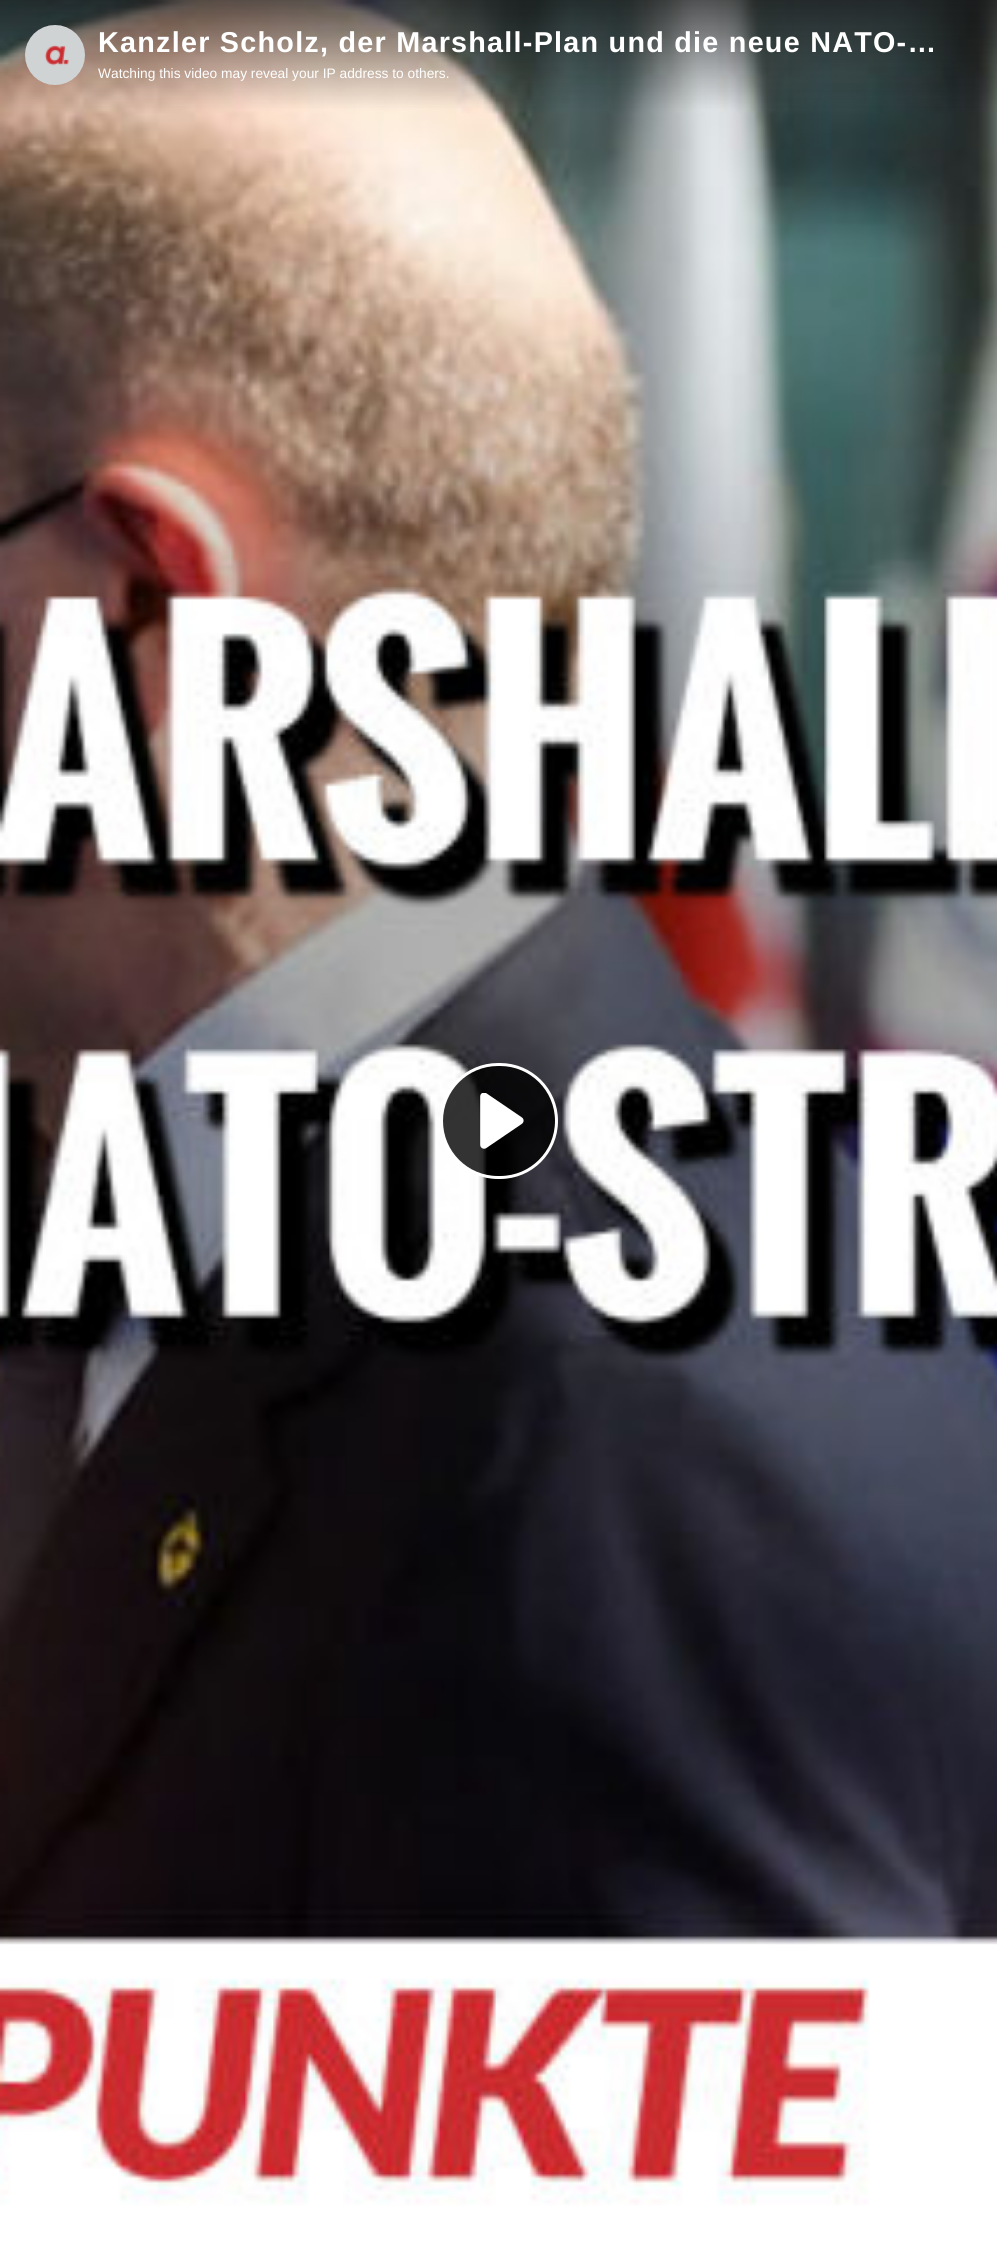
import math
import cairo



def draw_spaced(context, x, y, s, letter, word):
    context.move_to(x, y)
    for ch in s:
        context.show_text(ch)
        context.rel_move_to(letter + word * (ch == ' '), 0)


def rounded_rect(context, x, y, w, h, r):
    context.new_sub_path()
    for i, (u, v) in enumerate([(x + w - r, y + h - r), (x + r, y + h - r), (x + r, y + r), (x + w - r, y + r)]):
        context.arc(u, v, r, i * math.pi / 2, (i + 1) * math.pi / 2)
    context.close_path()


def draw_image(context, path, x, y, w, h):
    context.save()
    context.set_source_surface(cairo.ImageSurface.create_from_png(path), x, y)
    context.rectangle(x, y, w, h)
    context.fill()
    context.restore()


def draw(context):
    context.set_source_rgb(1, 1, 1)
    context.paint()
    draw_image(context, "images/1.png", 0, 0, 997, 2241)
    draw_image(context, "images/2.png", 25, 25, 60, 60)
    context.set_source_rgba(0, 0, 0, 0.8)
    rounded_rect(context, 441.5, 1064.5, 115, 113, 56.5)
    context.fill_preserve()
    context.set_source_rgb(1, 1, 1)
    context.set_line_width(3)
    context.stroke()
    draw_image(context, "images/3.png", 480, 1093, 44, 56)
    context.select_font_face("Liberation Sans", cairo.FontSlant.NORMAL, cairo.FontWeight.BOLD)
    context.set_font_size(28.75)
    draw_spaced(context, 98, 52, "Kanzler Scholz, der Marshall-Plan und die neue NATO-…", 1.25, 0)
    context.select_font_face("Liberation Sans")
    context.set_font_size(13.75)
    context.move_to(98, 78)
    context.show_text("Watching this video may reveal your IP address to others.")


surface = cairo.ImageSurface(cairo.Format.RGB24, 997, 2241)
context = cairo.Context(surface)
options = cairo.FontOptions()
options.set_hint_metrics(cairo.HintMetrics.OFF)
options.set_hint_style(cairo.HintStyle.NONE)
context.set_font_options(options)
context.set_miter_limit(4)
draw(context)
surface.write_to_png("out.png")
